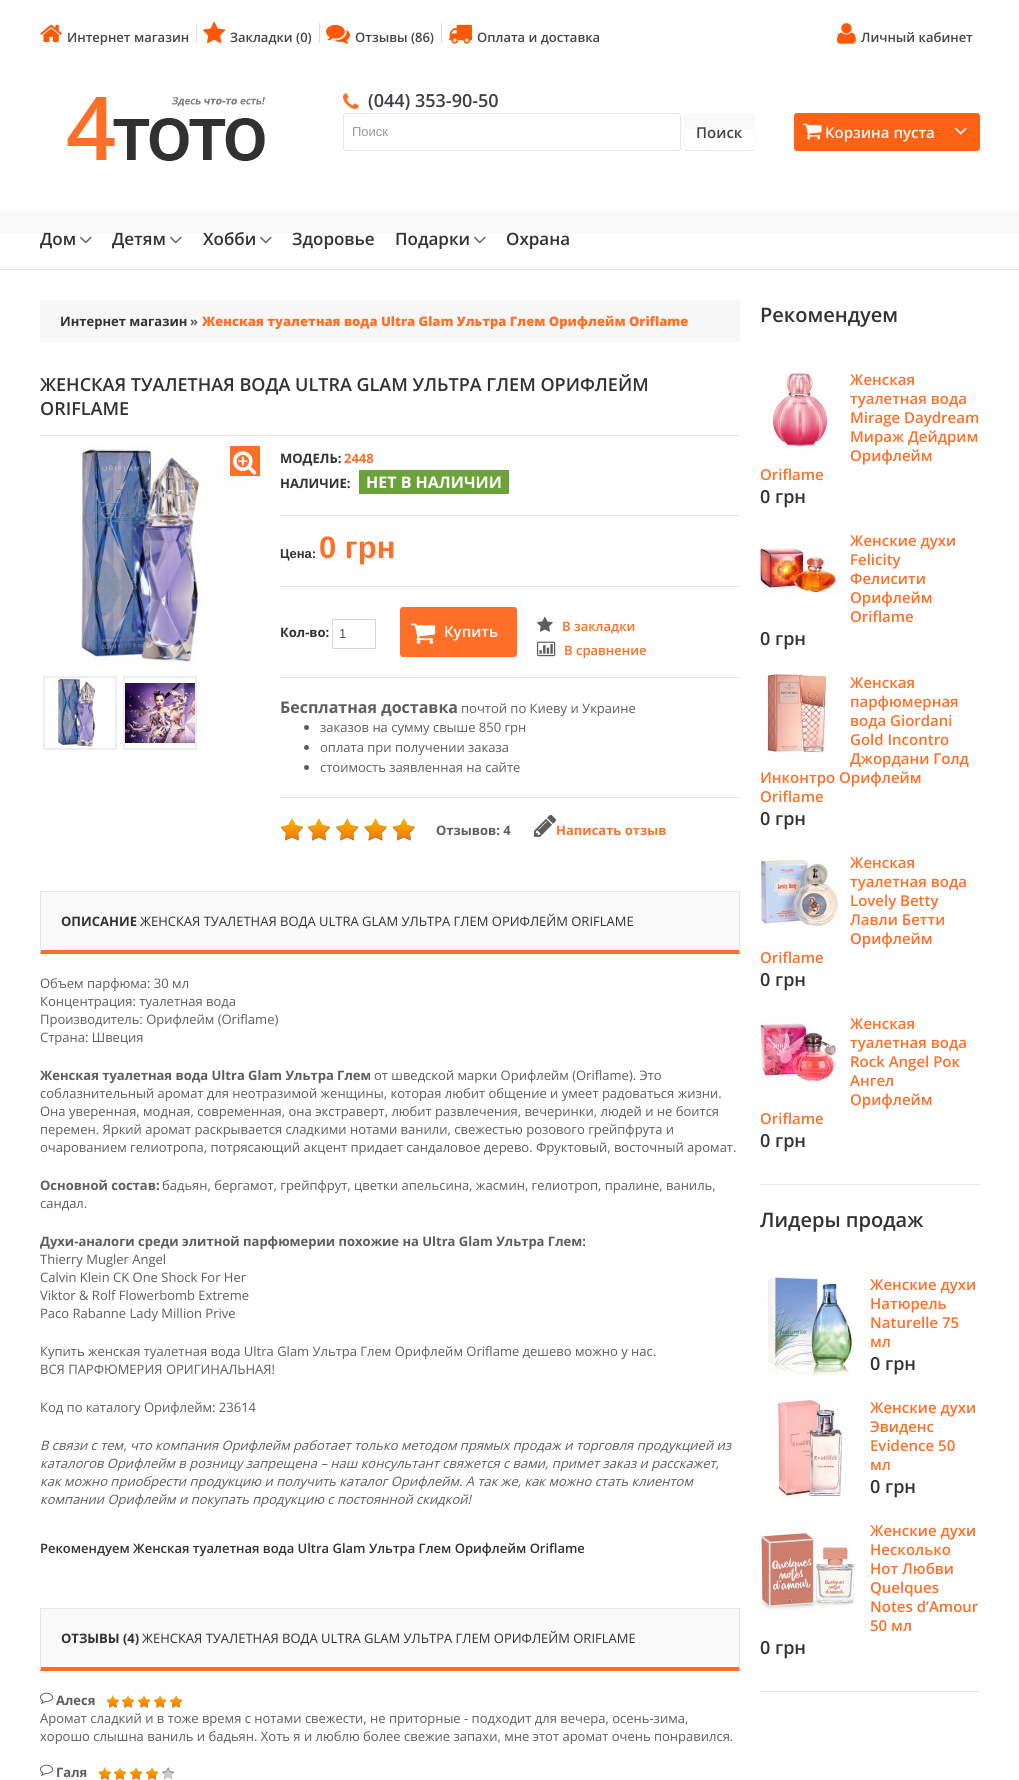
import math
import cairo



def rounded_rect(context, x, y, w, h, r):
    context.new_sub_path()
    for i, (u, v) in enumerate([(x + w - r, y + h - r), (x + r, y + h - r), (x + r, y + r), (x + w - r, y + r)]):
        context.arc(u, v, r, i * math.pi / 2, (i + 1) * math.pi / 2)
    context.close_path()


def draw_image(context, path, x, y, w, h):
    context.save()
    context.set_source_surface(cairo.ImageSurface.create_from_png(path), x, y)
    context.rectangle(x, y, w, h)
    context.fill()
    context.restore()


def draw(context):
    context.set_source_rgb(1, 1, 1)
    context.paint()
    draw_image(context, "images/1.png", 40, 24, 22, 18)
    draw_image(context, "images/2.png", 196, 23, 1, 20)
    draw_image(context, "images/3.png", 203, 21, 23, 23)
    draw_image(context, "images/2.png", 319, 23, 1, 20)
    draw_image(context, "images/4.png", 326, 24, 24, 20)
    draw_image(context, "images/2.png", 441, 23, 1, 20)
    draw_image(context, "images/5.png", 448, 24, 24, 20)
    draw_image(context, "images/6.png", 837, 23, 19, 21)
    draw_image(context, "images/7.png", 67, 97, 198, 64)
    draw_image(context, "images/8.png", 343, 93, 16, 16)
    rounded_rect(context, 343.5, 113.5, 337, 37, 2.5)
    context.set_source_rgb(230 / 255, 230 / 255, 230 / 255)
    context.set_line_width(1)
    context.stroke()
    context.set_source_rgb(249 / 255, 249 / 255, 249 / 255)
    context.rectangle(684, 114, 71, 15)
    context.fill()
    context.new_path()
    context.move_to(754, 114)
    context.curve_to(754, 114.5, 754.5, 115.5, 754.5, 116)
    context.line_to(754.5, 148)
    context.curve_to(754.5, 148.5, 754, 149.5, 754, 150)
    context.set_source_rgb(248 / 255, 248 / 255, 248 / 255)
    context.stroke()
    context.new_path()
    context.move_to(754, 150)
    context.line_to(753.5, 150)
    context.curve_to(751.5, 151.5, 704, 150.5, 698, 150.5)
    context.line_to(687, 150.5)
    context.line_to(685, 150)
    context.set_source_rgb(230 / 255, 230 / 255, 230 / 255)
    context.stroke()
    context.new_path()
    context.move_to(685, 150)
    context.curve_to(683.5, 148, 684.5, 135, 684.5, 132)
    context.line_to(684.5, 121.5)
    context.curve_to(684.5, 110.5, 685, 113.5, 698, 113.5)
    context.line_to(752, 113.5)
    context.line_to(754, 114)
    context.set_source_rgb(249 / 255, 249 / 255, 249 / 255)
    context.stroke()
    context.set_source_rgb(254 / 255, 98 / 255, 21 / 255)
    rounded_rect(context, 794, 113, 186, 38, 3)
    context.fill()
    draw_image(context, "images/9.png", 803, 123, 19, 17)
    draw_image(context, "images/10.png", 954, 127, 13, 8)
    context.set_source_rgb(249 / 255, 249 / 255, 249 / 255)
    context.rectangle(0, 210, 1019, 24)
    context.fill()
    context.set_source_rgb(230 / 255, 230 / 255, 230 / 255)
    context.rectangle(0, 269, 1019, 1)
    context.fill()
    draw_image(context, "images/11.png", 80, 236, 12, 8)
    draw_image(context, "images/11.png", 170, 236, 12, 8)
    draw_image(context, "images/11.png", 260, 236, 12, 8)
    draw_image(context, "images/11.png", 474, 236, 12, 8)
    context.set_source_rgb(247 / 255, 247 / 255, 247 / 255)
    context.rectangle(40, 300, 700, 42)
    context.fill()
    context.set_source_rgb(230 / 255, 230 / 255, 230 / 255)
    context.rectangle(40, 435, 700, 1)
    context.fill()
    draw_image(context, "images/12.png", 40, 446, 220, 220)
    context.set_source_rgb(1, 111 / 255, 40 / 255)
    context.rectangle(230, 446, 30, 30)
    context.fill()
    draw_image(context, "images/13.png", 233, 451, 24, 24)
    context.set_source_rgb(239 / 255, 238 / 255, 238 / 255)
    context.rectangle(43, 676, 74, 74)
    context.fill()
    draw_image(context, "images/14.png", 45, 678, 70, 70)
    context.rectangle(123, 676, 74, 74)
    context.fill()
    draw_image(context, "images/15.png", 125, 678, 70, 70)
    context.set_source_rgb(107 / 255, 162 / 255, 57 / 255)
    context.rectangle(359, 470, 150, 24)
    context.fill()
    context.set_source_rgb(230 / 255, 230 / 255, 230 / 255)
    context.rectangle(280, 515, 460, 1)
    context.fill()
    context.rectangle(280, 586, 460, 1)
    context.fill()
    context.rectangle(280, 677, 460, 1)
    context.fill()
    context.rectangle(332.5, 619.5, 43, 29)
    context.set_source_rgb(215 / 255, 215 / 255, 215 / 255)
    context.stroke()
    context.set_source_rgb(1, 111 / 255, 40 / 255)
    rounded_rect(context, 400, 607, 117, 50, 3)
    context.fill()
    draw_image(context, "images/16.png", 411, 623, 25, 21)
    draw_image(context, "images/17.png", 537, 616, 16, 16)
    draw_image(context, "images/18.png", 537, 641, 19, 16)
    context.set_source_rgb(230 / 255, 230 / 255, 230 / 255)
    context.rectangle(280, 797, 460, 1)
    context.fill()
    context.set_source_rgb(94 / 255, 94 / 255, 94 / 255)
    context.arc(306.5, 727.5, 2.5, 0, 2 * math.pi)
    context.fill()
    context.arc(306.5, 747.5, 2.5, 0, 2 * math.pi)
    context.fill()
    context.arc(306.5, 767.5, 2.5, 0, 2 * math.pi)
    context.fill()
    draw_image(context, "images/19.png", 280, 818, 135, 23)
    draw_image(context, "images/20.png", 534, 814, 22, 23)
    context.set_source_rgb(249 / 255, 249 / 255, 249 / 255)
    context.rectangle(41, 892, 698, 58)
    context.fill()
    context.set_source_rgb(230 / 255, 230 / 255, 230 / 255)
    context.rectangle(40, 891, 700, 1)
    context.fill()
    context.new_path()
    context.move_to(740, 891)
    context.line_to(740, 954)
    context.line_to(739, 950)
    context.line_to(739, 892)
    context.close_path()
    context.fill()
    context.set_source_rgb(1, 111 / 255, 40 / 255)
    context.new_path()
    context.move_to(740, 954)
    context.line_to(40, 954)
    context.line_to(41, 950)
    context.line_to(739, 950)
    context.close_path()
    context.fill()
    context.set_source_rgb(230 / 255, 230 / 255, 230 / 255)
    context.new_path()
    context.move_to(40, 954)
    context.line_to(40, 891)
    context.line_to(41, 892)
    context.line_to(41, 950)
    context.close_path()
    context.fill()
    context.set_source_rgb(249 / 255, 249 / 255, 249 / 255)
    context.rectangle(41, 1609, 698, 58)
    context.fill()
    context.set_source_rgb(230 / 255, 230 / 255, 230 / 255)
    context.rectangle(40, 1608, 700, 1)
    context.fill()
    context.new_path()
    context.move_to(740, 1608)
    context.line_to(740, 1671)
    context.line_to(739, 1667)
    context.line_to(739, 1609)
    context.close_path()
    context.fill()
    context.set_source_rgb(1, 111 / 255, 40 / 255)
    context.new_path()
    context.move_to(740, 1671)
    context.line_to(40, 1671)
    context.line_to(41, 1667)
    context.line_to(739, 1667)
    context.close_path()
    context.fill()
    context.set_source_rgb(230 / 255, 230 / 255, 230 / 255)
    context.new_path()
    context.move_to(40, 1671)
    context.line_to(40, 1608)
    context.line_to(41, 1609)
    context.line_to(41, 1667)
    context.close_path()
    context.fill()
    draw_image(context, "images/21.png", 40, 1692, 13, 12)
    draw_image(context, "images/22.png", 106, 1695, 77, 13)
    draw_image(context, "images/21.png", 40, 1764, 13, 12)
    draw_image(context, "images/23.png", 98, 1767, 77, 13)
    context.rectangle(760, 1184, 220, 1)
    context.fill()
    draw_image(context, "images/24.png", 763, 370, 77, 80)
    draw_image(context, "images/25.png", 760, 546, 80, 49)
    draw_image(context, "images/26.png", 760, 673, 74, 80)
    draw_image(context, "images/27.png", 760, 853, 80, 80)
    draw_image(context, "images/28.png", 760, 1016, 80, 70)
    context.rectangle(760, 1691, 220, 1)
    context.fill()
    draw_image(context, "images/29.png", 767, 1275, 89, 100)
    draw_image(context, "images/30.png", 776, 1398, 71, 100)
    draw_image(context, "images/31.png", 760, 1529, 96, 82)
    context.select_font_face("Open Sans SemiBold")
    context.set_font_size(13)
    context.set_source_rgb(68 / 255, 69 / 255, 68 / 255)
    context.move_to(67, 42)
    context.show_text("Интернет магазин")
    context.move_to(230, 42)
    context.show_text("Закладки (0)")
    context.move_to(355, 42)
    context.show_text("Отзывы (86)")
    context.move_to(477, 42)
    context.show_text("Оплата и доставка")
    context.move_to(861, 42)
    context.show_text("Личный кабинет")
    context.set_font_size(18)
    context.set_source_rgb(62 / 255, 61 / 255, 65 / 255)
    context.move_to(368, 107)
    context.show_text("(044) 353-90-50")
    context.select_font_face("Liberation Sans")
    context.set_font_size(13)
    context.set_source_rgb(153 / 255, 153 / 255, 153 / 255)
    context.move_to(352, 136)
    context.show_text("Поиск")
    context.select_font_face("Open Sans SemiBold")
    context.set_font_size(15)
    context.set_source_rgb(68 / 255, 69 / 255, 68 / 255)
    context.move_to(696, 138)
    context.show_text("Поиск")
    context.set_source_rgb(1, 1, 1)
    context.move_to(825, 138)
    context.show_text("Корзина пуста")
    context.set_font_size(17)
    context.set_source_rgb(50 / 255, 50 / 255, 50 / 255)
    context.move_to(40, 245)
    context.show_text("Дом")
    context.move_to(112, 245)
    context.show_text("Детям")
    context.move_to(203, 245)
    context.show_text("Хобби")
    context.move_to(292, 245)
    context.show_text("Здоровье")
    context.move_to(395, 245)
    context.show_text("Подарки")
    context.move_to(506, 245)
    context.show_text("Охрана")
    context.select_font_face("Open Sans", cairo.FontSlant.NORMAL, cairo.FontWeight.BOLD)
    context.set_font_size(13)
    context.move_to(60, 326)
    context.show_text("Интернет магазин")
    context.set_source_rgb(94 / 255, 94 / 255, 94 / 255)
    context.move_to(190, 326)
    context.show_text("»")
    context.select_font_face("Open Sans ExtraBold")
    context.set_source_rgb(1, 111 / 255, 40 / 255)
    context.move_to(202, 326)
    context.show_text("Женская туалетная вода Ultra Glam Ультра Глем Орифлейм Oriflame")
    context.select_font_face("Open Sans SemiBold")
    context.set_font_size(18)
    context.set_source_rgb(50 / 255, 50 / 255, 50 / 255)
    context.move_to(40, 391)
    context.show_text("ЖЕНСКАЯ ТУАЛЕТНАЯ ВОДА ULTRA GLAM УЛЬТРА ГЛЕМ ОРИФЛЕЙМ")
    context.move_to(40, 415)
    context.show_text("ORIFLAME")
    context.select_font_face("Open Sans", cairo.FontSlant.NORMAL, cairo.FontWeight.BOLD)
    context.set_font_size(13)
    context.move_to(280, 463)
    context.show_text("МОДЕЛЬ:")
    context.set_source_rgb(1, 111 / 255, 40 / 255)
    context.move_to(344, 463)
    context.show_text("2448")
    context.set_source_rgb(50 / 255, 50 / 255, 50 / 255)
    context.move_to(280, 488)
    context.show_text("НАЛИЧИЕ:")
    context.set_font_size(16)
    context.set_source_rgb(1, 1, 1)
    context.move_to(366, 488)
    context.show_text("НЕТ В НАЛИЧИИ")
    context.select_font_face("Liberation Sans", cairo.FontSlant.NORMAL, cairo.FontWeight.BOLD)
    context.set_font_size(13)
    context.set_source_rgb(50 / 255, 50 / 255, 50 / 255)
    context.move_to(280, 558)
    context.show_text("Цена:")
    context.set_font_size(31)
    context.set_source_rgb(1, 111 / 255, 40 / 255)
    context.move_to(319, 558)
    context.show_text("0 грн")
    context.select_font_face("Open Sans", cairo.FontSlant.NORMAL, cairo.FontWeight.BOLD)
    context.set_font_size(13)
    context.set_source_rgb(50 / 255, 50 / 255, 50 / 255)
    context.move_to(280, 637)
    context.show_text("Кол-во:")
    context.select_font_face("Liberation Sans")
    context.set_source_rgb(85 / 255, 85 / 255, 85 / 255)
    context.move_to(339, 638)
    context.show_text("1")
    context.select_font_face("Open Sans SemiBold")
    context.set_font_size(15)
    context.set_source_rgb(1, 1, 1)
    context.move_to(444, 637)
    context.show_text("Купить")
    context.set_font_size(13)
    context.set_source_rgb(1, 111 / 255, 40 / 255)
    context.move_to(562, 631)
    context.show_text("В закладки")
    context.move_to(564, 655)
    context.show_text("В сравнение")
    context.select_font_face("Open Sans", cairo.FontSlant.NORMAL, cairo.FontWeight.BOLD)
    context.set_font_size(16)
    context.set_source_rgb(94 / 255, 94 / 255, 94 / 255)
    context.move_to(280, 713)
    context.show_text("Бесплатная доставка")
    context.select_font_face("Open Sans")
    context.set_font_size(13)
    context.move_to(461, 713)
    context.show_text("почтой по Киеву и Украине")
    context.move_to(320, 732)
    context.show_text("заказов на сумму свыше 850 грн")
    context.move_to(320, 752)
    context.show_text("оплата при получении заказа")
    context.move_to(320, 772)
    context.show_text("стоимость заявленная на сайте")
    context.select_font_face("Open Sans", cairo.FontSlant.NORMAL, cairo.FontWeight.BOLD)
    context.move_to(436, 835)
    context.show_text("Отзывов: 4")
    context.set_source_rgb(1, 111 / 255, 40 / 255)
    context.move_to(556, 835)
    context.show_text("Написать отзыв")
    context.set_source_rgb(50 / 255, 50 / 255, 50 / 255)
    context.move_to(61, 926)
    context.show_text("ОПИСАНИЕ")
    context.select_font_face("Open Sans")
    context.move_to(140, 926)
    context.show_text("ЖЕНСКАЯ ТУАЛЕТНАЯ ВОДА ULTRA GLAM УЛЬТРА ГЛЕМ ОРИФЛЕЙМ ORIFLAME")
    context.set_source_rgb(94 / 255, 94 / 255, 94 / 255)
    context.move_to(40, 988)
    context.show_text("Объем парфюма: 30 мл")
    context.move_to(40, 1006)
    context.show_text("Концентрация: туалетная вода")
    context.move_to(40, 1024)
    context.show_text("Производитель: Орифлейм (Oriflame)")
    context.move_to(40, 1042)
    context.show_text("Страна: Швеция")
    context.select_font_face("Open Sans", cairo.FontSlant.NORMAL, cairo.FontWeight.BOLD)
    context.move_to(40, 1080)
    context.show_text("Женская туалетная вода Ultra Glam Ультра Глем")
    context.select_font_face("Open Sans")
    context.move_to(374, 1080)
    context.show_text("от шведской марки Орифлейм (Oriflame). Это")
    context.move_to(40, 1098)
    context.show_text("соблазнительный аромат для неотразимой женщины, которая любит общение и умеет радоваться жизни.")
    context.move_to(40, 1116)
    context.show_text("Она уверенная, модная, современная, она экстраверт, любит развлечения, вечеринки, людей и не боится")
    context.move_to(40, 1134)
    context.show_text("перемен. Яркий аромат раскрывается сладкими нотами ванили, свежестью розового грейпфрута и")
    context.move_to(40, 1152)
    context.show_text("очарованием гелиотропа, потрясающий акцент придает сандаловое дерево. Фруктовый, восточный аромат.")
    context.select_font_face("Open Sans", cairo.FontSlant.NORMAL, cairo.FontWeight.BOLD)
    context.move_to(40, 1190)
    context.show_text("Основной состав:")
    context.select_font_face("Open Sans")
    context.move_to(162, 1190)
    context.show_text("бадьян, бергамот, грейпфрут, цветки апельсина, жасмин, гелиотроп, пралине, ваниль,")
    context.move_to(40, 1208)
    context.show_text("сандал.")
    context.save()
    context.rectangle(40, 954, 700, 644)
    context.clip()
    context.select_font_face("Open Sans", cairo.FontSlant.NORMAL, cairo.FontWeight.BOLD)
    context.move_to(40, 1246)
    context.show_text("Духи-аналоги среди элитной парфюмерии похожие на Ultra Glam Ультра Глем:")
    context.restore()
    context.move_to(40, 1264)
    context.show_text("Thierry Mugler Angel")
    context.move_to(40, 1282)
    context.show_text("Calvin Klein CK One Shock For Her")
    context.move_to(40, 1300)
    context.show_text("Viktor & Rolf Flowerbomb Extreme")
    context.move_to(40, 1318)
    context.show_text("Paco Rabanne Lady Million Prive")
    context.move_to(40, 1356)
    context.show_text("Купить женская туалетная вода Ultra Glam Ультра Глем Орифлейм Oriflame дешево можно у нас.")
    context.move_to(40, 1374)
    context.show_text("ВСЯ ПАРФЮМЕРИЯ ОРИГИНАЛЬНАЯ!")
    context.move_to(40, 1412)
    context.show_text("Код по каталогу Орифлейм: 23614")
    context.select_font_face("Open Sans", cairo.FontSlant.ITALIC)
    context.move_to(40, 1450)
    context.show_text("В связи с тем, что компания Орифлейм работает только методом прямых продаж и торговля продукцией из")
    context.move_to(40, 1468)
    context.show_text("каталогов Орифлейм в розницу запрещена – наш консультант свяжется с вами, примет заказ и расскажет,")
    context.move_to(40, 1486)
    context.show_text("как можно приобрести продукцию и получить каталог Орифлейм. А так же, как можно стать клиентом")
    context.move_to(40, 1504)
    context.show_text("компании Орифлейм и покупать продукцию с постоянной скидкой!")
    context.select_font_face("Open Sans SemiBold")
    context.set_source_rgb(50 / 255, 50 / 255, 50 / 255)
    context.move_to(40, 1553)
    context.show_text("Рекомендуем Женская туалетная вода Ultra Glam Ультра Глем Орифлейм Oriflame")
    context.select_font_face("Open Sans", cairo.FontSlant.NORMAL, cairo.FontWeight.BOLD)
    context.move_to(61, 1643)
    context.show_text("ОТЗЫВЫ (4)")
    context.select_font_face("Open Sans")
    context.move_to(142, 1643)
    context.show_text("ЖЕНСКАЯ ТУАЛЕТНАЯ ВОДА ULTRA GLAM УЛЬТРА ГЛЕМ ОРИФЛЕЙМ ORIFLAME")
    context.select_font_face("Open Sans", cairo.FontSlant.NORMAL, cairo.FontWeight.BOLD)
    context.set_source_rgb(94 / 255, 94 / 255, 94 / 255)
    context.move_to(56, 1705)
    context.show_text("Алеся")
    context.select_font_face("Open Sans")
    context.move_to(40, 1723)
    context.show_text("Аромат сладкий и в тоже время с нотами свежести, не приторные - подходит для вечера, осень-зима,")
    context.move_to(40, 1741)
    context.show_text("хорошо слышна ваниль и бадьян. Хоть я и люблю более свежие запахи, мне этот аромат очень понравился.")
    context.select_font_face("Open Sans", cairo.FontSlant.NORMAL, cairo.FontWeight.BOLD)
    context.move_to(56, 1777)
    context.show_text("Галя")
    context.select_font_face("Open Sans SemiBold")
    context.set_font_size(20)
    context.set_source_rgb(50 / 255, 50 / 255, 50 / 255)
    context.move_to(760, 322)
    context.show_text("Рекомендуем")
    context.set_font_size(15)
    context.set_source_rgb(1, 111 / 255, 40 / 255)
    context.move_to(850, 385)
    context.show_text("Женская")
    context.move_to(850, 404)
    context.show_text("туалетная вода")
    context.move_to(850, 423)
    context.show_text("Mirage Daydream")
    context.move_to(850, 442)
    context.show_text("Мираж Дейдрим")
    context.move_to(850, 461)
    context.show_text("Орифлейм")
    context.move_to(760, 480)
    context.show_text("Oriflame")
    context.set_font_size(18)
    context.set_source_rgb(50 / 255, 50 / 255, 50 / 255)
    context.move_to(760, 503)
    context.show_text("0 грн")
    context.set_font_size(15)
    context.set_source_rgb(1, 111 / 255, 40 / 255)
    context.move_to(850, 546)
    context.show_text("Женские духи")
    context.move_to(850, 565)
    context.show_text("Felicity")
    context.move_to(850, 584)
    context.show_text("Фелисити")
    context.move_to(850, 603)
    context.show_text("Орифлейм")
    context.move_to(850, 622)
    context.show_text("Oriflame")
    context.set_font_size(18)
    context.set_source_rgb(50 / 255, 50 / 255, 50 / 255)
    context.move_to(760, 645)
    context.show_text("0 грн")
    context.set_font_size(15)
    context.set_source_rgb(1, 111 / 255, 40 / 255)
    context.move_to(850, 688)
    context.show_text("Женская")
    context.move_to(850, 707)
    context.show_text("парфюмерная")
    context.move_to(850, 726)
    context.show_text("вода Giordani")
    context.move_to(850, 745)
    context.show_text("Gold Incontro")
    context.move_to(850, 764)
    context.show_text("Джордани Голд")
    context.move_to(760, 783)
    context.show_text("Инконтро Орифлейм")
    context.move_to(760, 802)
    context.show_text("Oriflame")
    context.set_font_size(18)
    context.set_source_rgb(50 / 255, 50 / 255, 50 / 255)
    context.move_to(760, 825)
    context.show_text("0 грн")
    context.set_font_size(15)
    context.set_source_rgb(1, 111 / 255, 40 / 255)
    context.move_to(850, 868)
    context.show_text("Женская")
    context.move_to(850, 887)
    context.show_text("туалетная вода")
    context.move_to(850, 906)
    context.show_text("Lovely Betty")
    context.move_to(850, 925)
    context.show_text("Лавли Бетти")
    context.move_to(850, 944)
    context.show_text("Орифлейм")
    context.move_to(760, 963)
    context.show_text("Oriflame")
    context.set_font_size(18)
    context.set_source_rgb(50 / 255, 50 / 255, 50 / 255)
    context.move_to(760, 986)
    context.show_text("0 грн")
    context.set_font_size(15)
    context.set_source_rgb(1, 111 / 255, 40 / 255)
    context.move_to(850, 1029)
    context.show_text("Женская")
    context.move_to(850, 1048)
    context.show_text("туалетная вода")
    context.move_to(850, 1067)
    context.show_text("Rock Angel Рок")
    context.move_to(850, 1086)
    context.show_text("Ангел")
    context.move_to(850, 1105)
    context.show_text("Орифлейм")
    context.move_to(760, 1124)
    context.show_text("Oriflame")
    context.set_font_size(18)
    context.set_source_rgb(50 / 255, 50 / 255, 50 / 255)
    context.move_to(760, 1147)
    context.show_text("0 грн")
    context.set_font_size(20)
    context.move_to(760, 1227)
    context.show_text("Лидеры продаж")
    context.set_font_size(15)
    context.set_source_rgb(1, 111 / 255, 40 / 255)
    context.move_to(870, 1290)
    context.show_text("Женские духи")
    context.move_to(870, 1309)
    context.show_text("Натюрель")
    context.move_to(870, 1328)
    context.show_text("Naturelle 75")
    context.move_to(870, 1347)
    context.show_text("мл")
    context.set_font_size(18)
    context.set_source_rgb(50 / 255, 50 / 255, 50 / 255)
    context.move_to(870, 1370)
    context.show_text("0 грн")
    context.set_font_size(15)
    context.set_source_rgb(1, 111 / 255, 40 / 255)
    context.move_to(870, 1413)
    context.show_text("Женские духи")
    context.move_to(870, 1432)
    context.show_text("Эвиденс")
    context.move_to(870, 1451)
    context.show_text("Evidence 50")
    context.move_to(870, 1470)
    context.show_text("мл")
    context.set_font_size(18)
    context.set_source_rgb(50 / 255, 50 / 255, 50 / 255)
    context.move_to(870, 1493)
    context.show_text("0 грн")
    context.set_font_size(15)
    context.set_source_rgb(1, 111 / 255, 40 / 255)
    context.move_to(870, 1536)
    context.show_text("Женские духи")
    context.move_to(870, 1555)
    context.show_text("Несколько")
    context.move_to(870, 1574)
    context.show_text("Нот Любви")
    context.move_to(870, 1593)
    context.show_text("Quelques")
    context.move_to(870, 1612)
    context.show_text("Notes d’Amour")
    context.move_to(870, 1631)
    context.show_text("50 мл")
    context.set_font_size(18)
    context.set_source_rgb(50 / 255, 50 / 255, 50 / 255)
    context.move_to(760, 1654)
    context.show_text("0 грн")


surface = cairo.ImageSurface(cairo.Format.RGB24, 1019, 1780)
context = cairo.Context(surface)
options = cairo.FontOptions()
options.set_hint_metrics(cairo.HintMetrics.OFF)
options.set_hint_style(cairo.HintStyle.NONE)
context.set_font_options(options)
context.set_miter_limit(4)
draw(context)
surface.write_to_png("out.png")
